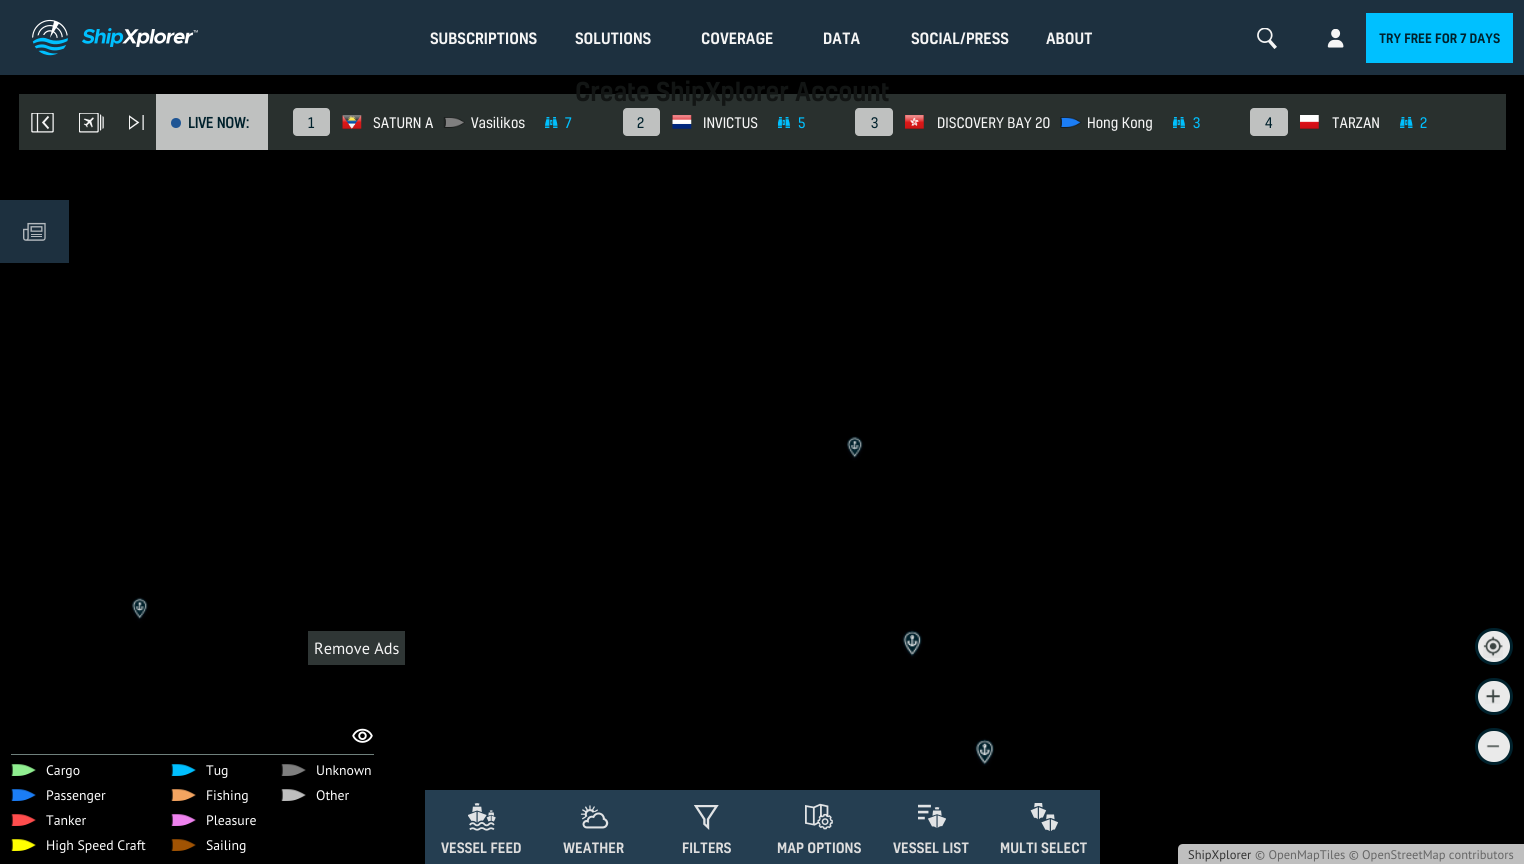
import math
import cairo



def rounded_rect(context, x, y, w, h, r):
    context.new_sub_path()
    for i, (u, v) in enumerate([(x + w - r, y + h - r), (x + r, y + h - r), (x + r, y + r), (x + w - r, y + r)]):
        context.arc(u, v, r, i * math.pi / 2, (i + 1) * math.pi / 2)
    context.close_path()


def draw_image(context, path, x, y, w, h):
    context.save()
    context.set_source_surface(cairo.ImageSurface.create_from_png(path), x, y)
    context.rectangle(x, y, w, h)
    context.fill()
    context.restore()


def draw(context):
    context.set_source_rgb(0, 0, 0)
    context.paint()
    context.set_source_rgb(29 / 255, 48 / 255, 63 / 255)
    context.rectangle(0, 0, 1524, 75)
    context.fill()
    draw_image(context, "images/1.png", 32, 19, 36, 37)
    draw_image(context, "images/2.png", 81, 28, 117, 19)
    draw_image(context, "images/3.png", 1257, 28, 20, 21)
    draw_image(context, "images/4.png", 1327, 29, 17, 19)
    context.set_source_rgb(0, 192 / 255, 1)
    context.rectangle(1366, 13, 147, 50)
    context.fill()
    context.set_source_rgb(29 / 255, 48 / 255, 63 / 255)
    context.rectangle(0, 200, 69, 63)
    context.fill()
    draw_image(context, "images/5.png", 23, 222, 23, 19)
    context.set_source_rgb(41 / 255, 48 / 255, 46 / 255)
    context.rectangle(19, 94, 1487, 56)
    context.fill()
    draw_image(context, "images/6.png", 31, 113, 23, 20)
    draw_image(context, "images/7.png", 79, 113, 25, 20)
    draw_image(context, "images/8.png", 129, 115, 15, 15)
    context.set_source_rgb(191 / 255, 193 / 255, 192 / 255)
    context.rectangle(156, 94, 112, 56)
    context.fill()
    context.set_source_rgb(30 / 255, 85 / 255, 148 / 255)
    context.arc(176, 123, 5, 0, 2 * math.pi)
    context.fill()
    context.set_source_rgb(191 / 255, 193 / 255, 192 / 255)
    rounded_rect(context, 293, 108, 37, 28, 4)
    context.fill()
    draw_image(context, "images/9.png", 342, 115, 20, 14)
    draw_image(context, "images/10.png", 443, 117, 22, 11)
    draw_image(context, "images/11.png", 545, 117, 13, 11)
    rounded_rect(context, 623, 108, 37, 28, 4)
    context.fill()
    draw_image(context, "images/12.png", 672, 115, 20, 14)
    draw_image(context, "images/13.png", 778, 117, 12, 11)
    rounded_rect(context, 855, 108, 38, 28, 4)
    context.fill()
    draw_image(context, "images/14.png", 905, 115, 19, 14)
    draw_image(context, "images/15.png", 1060, 117, 22, 11)
    draw_image(context, "images/13.png", 1173, 117, 12, 11)
    rounded_rect(context, 1250, 108, 38, 28, 4)
    context.fill()
    draw_image(context, "images/16.png", 1300, 115, 19, 14)
    draw_image(context, "images/11.png", 1400, 117, 13, 11)
    draw_image(context, "images/37.png", 131, 436, 863, 330)
    context.set_source_rgb(47 / 255, 54 / 255, 53 / 255)
    context.rectangle(308, 631, 97, 34)
    context.fill()
    draw_image(context, "images/17.png", 352, 728, 21, 15)
    context.set_source_rgb(111 / 255, 128 / 255, 124 / 255)
    context.rectangle(11, 754, 363, 1)
    context.fill()
    draw_image(context, "images/18.png", 11, 764, 25, 12)
    draw_image(context, "images/19.png", 171, 764, 25, 12)
    draw_image(context, "images/20.png", 281, 764, 25, 12)
    draw_image(context, "images/21.png", 11, 789, 25, 12)
    draw_image(context, "images/22.png", 171, 789, 25, 12)
    draw_image(context, "images/23.png", 281, 789, 25, 12)
    draw_image(context, "images/24.png", 11, 814, 25, 12)
    draw_image(context, "images/25.png", 171, 814, 25, 12)
    draw_image(context, "images/26.png", 11, 839, 25, 12)
    draw_image(context, "images/27.png", 171, 839, 25, 12)
    context.set_source_rgb(234 / 255, 234 / 255, 234 / 255)
    rounded_rect(context, 1476.5, 629.5, 35, 34, 17)
    context.fill_preserve()
    context.set_source_rgb(0, 33 / 255, 44 / 255)
    context.set_line_width(3)
    context.stroke()
    draw_image(context, "images/28.png", 1483, 636, 20, 22)
    context.set_source_rgb(234 / 255, 234 / 255, 234 / 255)
    rounded_rect(context, 1476.5, 679.5, 35, 34, 17)
    context.fill_preserve()
    context.set_source_rgb(0, 33 / 255, 44 / 255)
    context.stroke()
    draw_image(context, "images/29.png", 1485, 689, 15, 15)
    context.set_source_rgb(234 / 255, 234 / 255, 234 / 255)
    rounded_rect(context, 1476.5, 729.5, 35, 34, 17)
    context.fill_preserve()
    context.set_source_rgb(0, 33 / 255, 44 / 255)
    context.stroke()
    draw_image(context, "images/30.png", 1486, 745, 14, 3)
    context.set_source_rgb(37 / 255, 62 / 255, 81 / 255)
    context.rectangle(425, 790, 675, 74)
    context.fill()
    draw_image(context, "images/31.png", 468, 803, 28, 28)
    draw_image(context, "images/32.png", 580, 805, 29, 24)
    draw_image(context, "images/33.png", 694, 805, 25, 25)
    draw_image(context, "images/34.png", 805, 803, 28, 27)
    draw_image(context, "images/35.png", 918, 804, 28, 24)
    draw_image(context, "images/36.png", 1030, 803, 29, 28)
    context.set_source_rgb(191 / 255, 191 / 255, 191 / 255)
    context.new_path()
    context.move_to(1183, 844)
    context.line_to(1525, 844)
    context.line_to(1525, 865)
    context.line_to(1178, 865)
    context.line_to(1178, 849)
    context.curve_to(1178, 846, 1180, 844, 1183, 844)
    context.close_path()
    context.fill()
    context.select_font_face("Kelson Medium")
    context.set_font_size(15)
    context.set_source_rgb(245 / 255, 245 / 255, 245 / 255)
    context.move_to(430, 44)
    context.show_text("SUBSCRIPTIONS")
    context.move_to(575, 44)
    context.show_text("SOLUTIONS")
    context.move_to(701, 44)
    context.show_text("COVERAGE")
    context.move_to(823, 44)
    context.show_text("DATA")
    context.move_to(911, 44)
    context.show_text("SOCIAL/PRESS")
    context.move_to(1046, 44)
    context.show_text("ABOUT")
    context.set_font_size(12.5)
    context.set_source_rgb(0, 33 / 255, 44 / 255)
    context.move_to(1379, 43)
    context.show_text("TRY FREE FOR 7 DAYS")
    context.set_font_size(25)
    context.set_source_rgb(18 / 255, 21 / 255, 20 / 255)
    context.move_to(575, 101)
    context.show_text("Create ShipXplorer")
    context.move_to(795, 101)
    context.show_text("Account")
    context.select_font_face("Kelson", cairo.FontSlant.NORMAL, cairo.FontWeight.BOLD)
    context.set_font_size(14)
    context.set_source_rgb(0, 33 / 255, 44 / 255)
    context.move_to(188, 128)
    context.show_text("LIVE NOW:")
    context.select_font_face("Kelson")
    context.move_to(308, 128)
    context.show_text("1")
    context.set_source_rgb(245 / 255, 245 / 255, 245 / 255)
    context.move_to(373, 128)
    context.show_text("SATURN A")
    context.move_to(471, 128)
    context.show_text("Vasilikos")
    context.set_source_rgb(0, 192 / 255, 1)
    context.move_to(565, 128)
    context.show_text("7")
    context.set_source_rgb(0, 33 / 255, 44 / 255)
    context.move_to(637, 128)
    context.show_text("2")
    context.set_source_rgb(245 / 255, 245 / 255, 245 / 255)
    context.move_to(703, 128)
    context.show_text("INVICTUS")
    context.set_source_rgb(0, 192 / 255, 1)
    context.move_to(798, 128)
    context.show_text("5")
    context.set_source_rgb(0, 33 / 255, 44 / 255)
    context.move_to(871, 128)
    context.show_text("3")
    context.set_source_rgb(245 / 255, 245 / 255, 245 / 255)
    context.move_to(937, 128)
    context.show_text("DISCOVERY BAY 20")
    context.move_to(1087, 128)
    context.show_text("Hong Kong")
    context.set_source_rgb(0, 192 / 255, 1)
    context.move_to(1193, 128)
    context.show_text("3")
    context.set_source_rgb(0, 33 / 255, 44 / 255)
    context.move_to(1265, 128)
    context.show_text("4")
    context.set_source_rgb(245 / 255, 245 / 255, 245 / 255)
    context.move_to(1332, 128)
    context.show_text("TARZAN")
    context.set_source_rgb(0, 192 / 255, 1)
    context.move_to(1420, 128)
    context.show_text("2")
    context.select_font_face("PT Sans")
    context.set_font_size(16.25)
    context.set_source_rgb(245 / 255, 245 / 255, 245 / 255)
    context.move_to(314, 654)
    context.show_text("Remove Ads")
    context.set_font_size(13.75)
    context.set_source_rgb(1, 1, 1)
    context.move_to(46, 775)
    context.show_text("Cargo")
    context.move_to(206, 775)
    context.show_text("Tug")
    context.move_to(316, 775)
    context.show_text("Unknown")
    context.move_to(46, 800)
    context.show_text("Passenger")
    context.move_to(206, 800)
    context.show_text("Fishing")
    context.move_to(316, 800)
    context.show_text("Other")
    context.move_to(46, 825)
    context.show_text("Tanker")
    context.move_to(206, 825)
    context.show_text("Pleasure")
    context.move_to(46, 850)
    context.show_text("High Speed Craft")
    context.move_to(206, 850)
    context.show_text("Sailing")
    context.select_font_face("Kelson Medium")
    context.set_source_rgb(221 / 255, 221 / 255, 221 / 255)
    context.move_to(441, 853)
    context.show_text("VESSEL FEED")
    context.move_to(563, 853)
    context.show_text("WEATHER")
    context.move_to(682, 853)
    context.show_text("FILTERS")
    context.move_to(777, 853)
    context.show_text("MAP OPTIONS")
    context.move_to(893, 853)
    context.show_text("VESSEL LIST")
    context.move_to(1000, 853)
    context.show_text("MULTI SELECT")
    context.select_font_face("PT Sans")
    context.set_font_size(12.5)
    context.set_source_rgb(51 / 255, 51 / 255, 51 / 255)
    context.move_to(1188, 859)
    context.show_text("ShipXplorer")
    context.set_source_rgb(102 / 255, 102 / 255, 102 / 255)
    context.move_to(1255, 859)
    context.show_text("© OpenMapTiles © OpenStreetMap contributors")


surface = cairo.ImageSurface(cairo.Format.RGB24, 1524, 864)
context = cairo.Context(surface)
options = cairo.FontOptions()
options.set_hint_metrics(cairo.HintMetrics.OFF)
options.set_hint_style(cairo.HintStyle.NONE)
context.set_font_options(options)
context.set_miter_limit(4)
draw(context)
surface.write_to_png("out.png")
